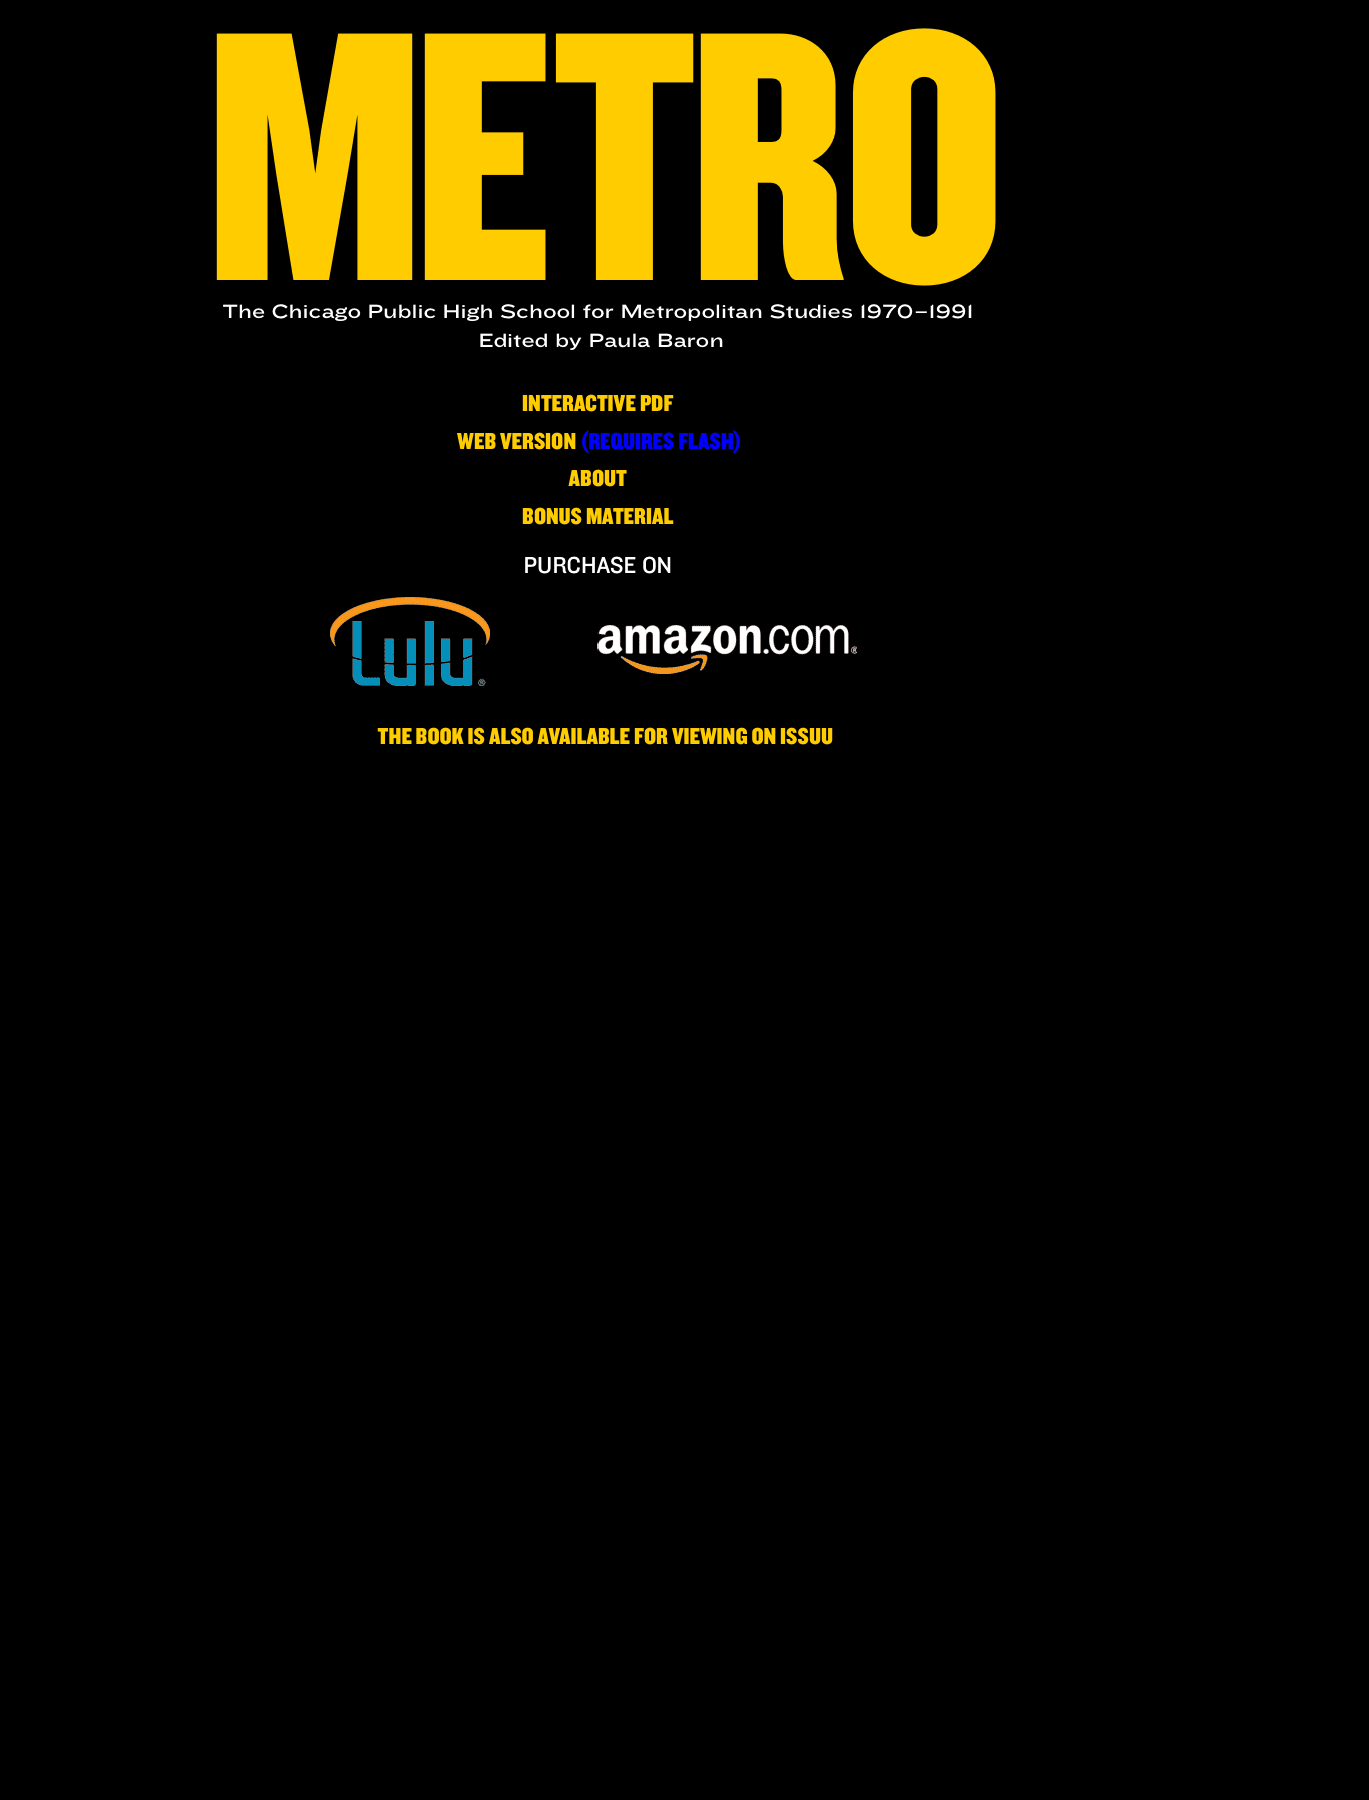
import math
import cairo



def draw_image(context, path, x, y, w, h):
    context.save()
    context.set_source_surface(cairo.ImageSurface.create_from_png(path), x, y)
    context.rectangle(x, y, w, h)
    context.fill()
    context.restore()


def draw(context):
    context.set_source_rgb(0, 0, 0)
    context.paint()
    draw_image(context, "images/1.png", 216, 28, 780, 658)
    draw_image(context, "images/2.png", 377, 727, 456, 18)


surface = cairo.ImageSurface(cairo.Format.RGB24, 1369, 1800)
context = cairo.Context(surface)
options = cairo.FontOptions()
options.set_hint_metrics(cairo.HintMetrics.OFF)
options.set_hint_style(cairo.HintStyle.NONE)
context.set_font_options(options)
context.set_miter_limit(4)
draw(context)
surface.write_to_png("out.png")
